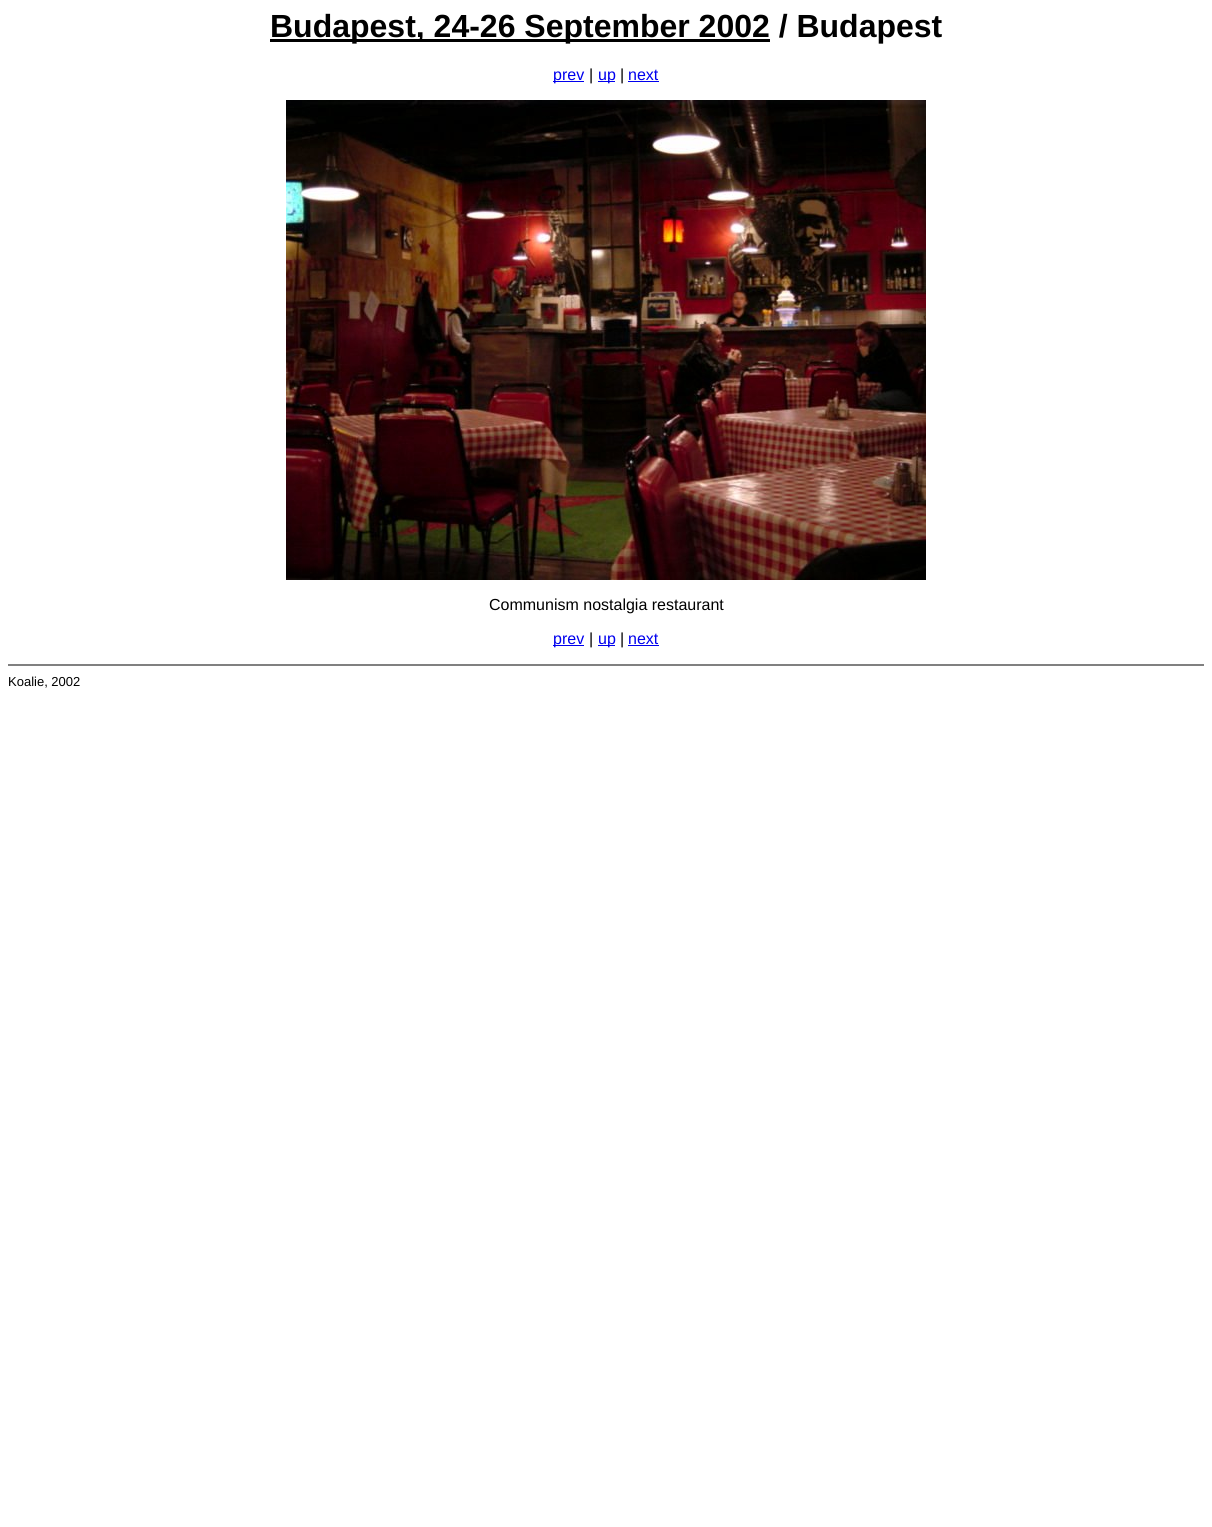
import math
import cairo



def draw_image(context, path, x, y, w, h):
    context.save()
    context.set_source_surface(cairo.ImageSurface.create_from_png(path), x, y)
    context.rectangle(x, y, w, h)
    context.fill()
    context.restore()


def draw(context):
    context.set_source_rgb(1, 1, 1)
    context.paint()
    context.set_source_rgb(0, 0, 0)
    context.rectangle(270, 39, 500, 3)
    context.fill()
    context.set_source_rgb(0, 0, 238 / 255)
    context.rectangle(553, 81, 31, 1)
    context.fill()
    context.rectangle(598, 81, 17, 1)
    context.fill()
    context.rectangle(628, 81, 31, 1)
    context.fill()
    draw_image(context, "images/1.png", 286, 100, 640, 480)
    context.rectangle(553, 645, 31, 1)
    context.fill()
    context.rectangle(598, 645, 17, 1)
    context.fill()
    context.rectangle(628, 645, 31, 1)
    context.fill()
    context.set_source_rgb(128 / 255, 128 / 255, 128 / 255)
    context.rectangle(8, 664, 1196, 2)
    context.fill()
    context.select_font_face("Liberation Sans", cairo.FontSlant.NORMAL, cairo.FontWeight.BOLD)
    context.set_font_size(32)
    context.set_source_rgb(0, 0, 0)
    context.move_to(270, 37)
    context.show_text("Budapest, 24-26 September 2002 / Budapest")
    context.select_font_face("Liberation Sans")
    context.set_font_size(16)
    context.set_source_rgb(0, 0, 238 / 255)
    context.move_to(553, 80)
    context.show_text("prev")
    context.set_source_rgb(0, 0, 0)
    context.move_to(589, 80)
    context.show_text("|")
    context.set_source_rgb(0, 0, 238 / 255)
    context.move_to(598, 80)
    context.show_text("up")
    context.set_source_rgb(0, 0, 0)
    context.move_to(620, 80)
    context.show_text("|")
    context.set_source_rgb(0, 0, 238 / 255)
    context.move_to(628, 80)
    context.show_text("next")
    context.set_source_rgb(0, 0, 0)
    context.move_to(489, 610)
    context.show_text("Communism nostalgia restaurant")
    context.set_source_rgb(0, 0, 238 / 255)
    context.move_to(553, 644)
    context.show_text("prev")
    context.set_source_rgb(0, 0, 0)
    context.move_to(589, 644)
    context.show_text("|")
    context.set_source_rgb(0, 0, 238 / 255)
    context.move_to(598, 644)
    context.show_text("up")
    context.set_source_rgb(0, 0, 0)
    context.move_to(620, 644)
    context.show_text("|")
    context.set_source_rgb(0, 0, 238 / 255)
    context.move_to(628, 644)
    context.show_text("next")
    context.set_font_size(13)
    context.set_source_rgb(0, 0, 0)
    context.move_to(8, 686)
    context.show_text("Koalie, 2002")


surface = cairo.ImageSurface(cairo.Format.RGB24, 1212, 1527)
context = cairo.Context(surface)
options = cairo.FontOptions()
options.set_hint_metrics(cairo.HintMetrics.OFF)
options.set_hint_style(cairo.HintStyle.NONE)
context.set_font_options(options)
context.set_miter_limit(4)
draw(context)
surface.write_to_png("out.png")
